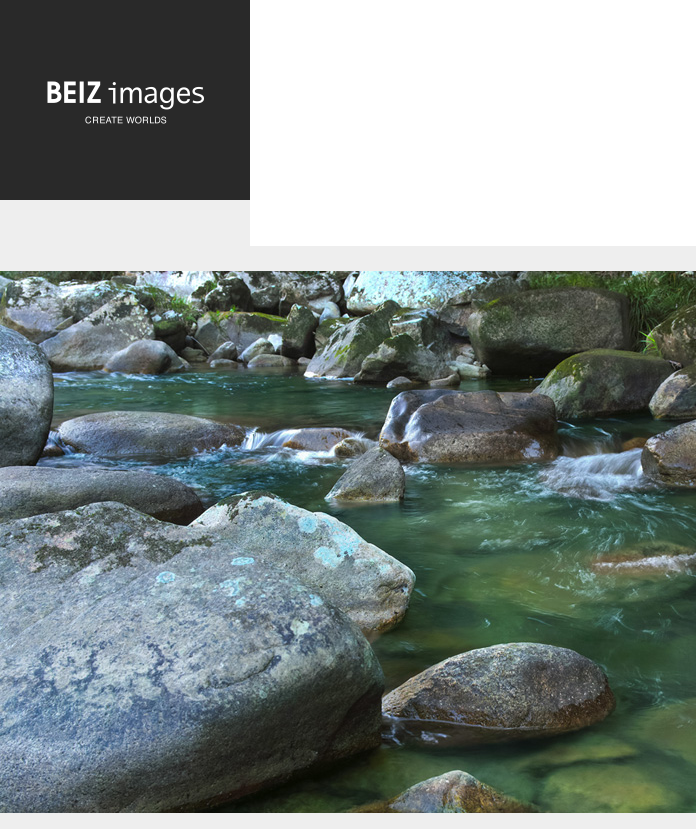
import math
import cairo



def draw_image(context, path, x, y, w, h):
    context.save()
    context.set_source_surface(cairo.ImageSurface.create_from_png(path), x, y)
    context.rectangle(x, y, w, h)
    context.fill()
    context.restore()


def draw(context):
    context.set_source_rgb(238 / 255, 238 / 255, 238 / 255)
    context.paint()
    context.set_source_rgb(41 / 255, 41 / 255, 41 / 255)
    context.rectangle(0, 0, 250, 200)
    context.fill()
    draw_image(context, "images/1.png", 47, 81, 157, 43)
    context.set_source_rgb(1, 1, 1)
    context.rectangle(250, 0, 446, 246)
    context.fill()
    draw_image(context, "images/2.png", 0, 271, 696, 542)


surface = cairo.ImageSurface(cairo.Format.RGB24, 696, 829)
context = cairo.Context(surface)
options = cairo.FontOptions()
options.set_hint_metrics(cairo.HintMetrics.OFF)
options.set_hint_style(cairo.HintStyle.NONE)
context.set_font_options(options)
context.set_miter_limit(4)
draw(context)
surface.write_to_png("out.png")
